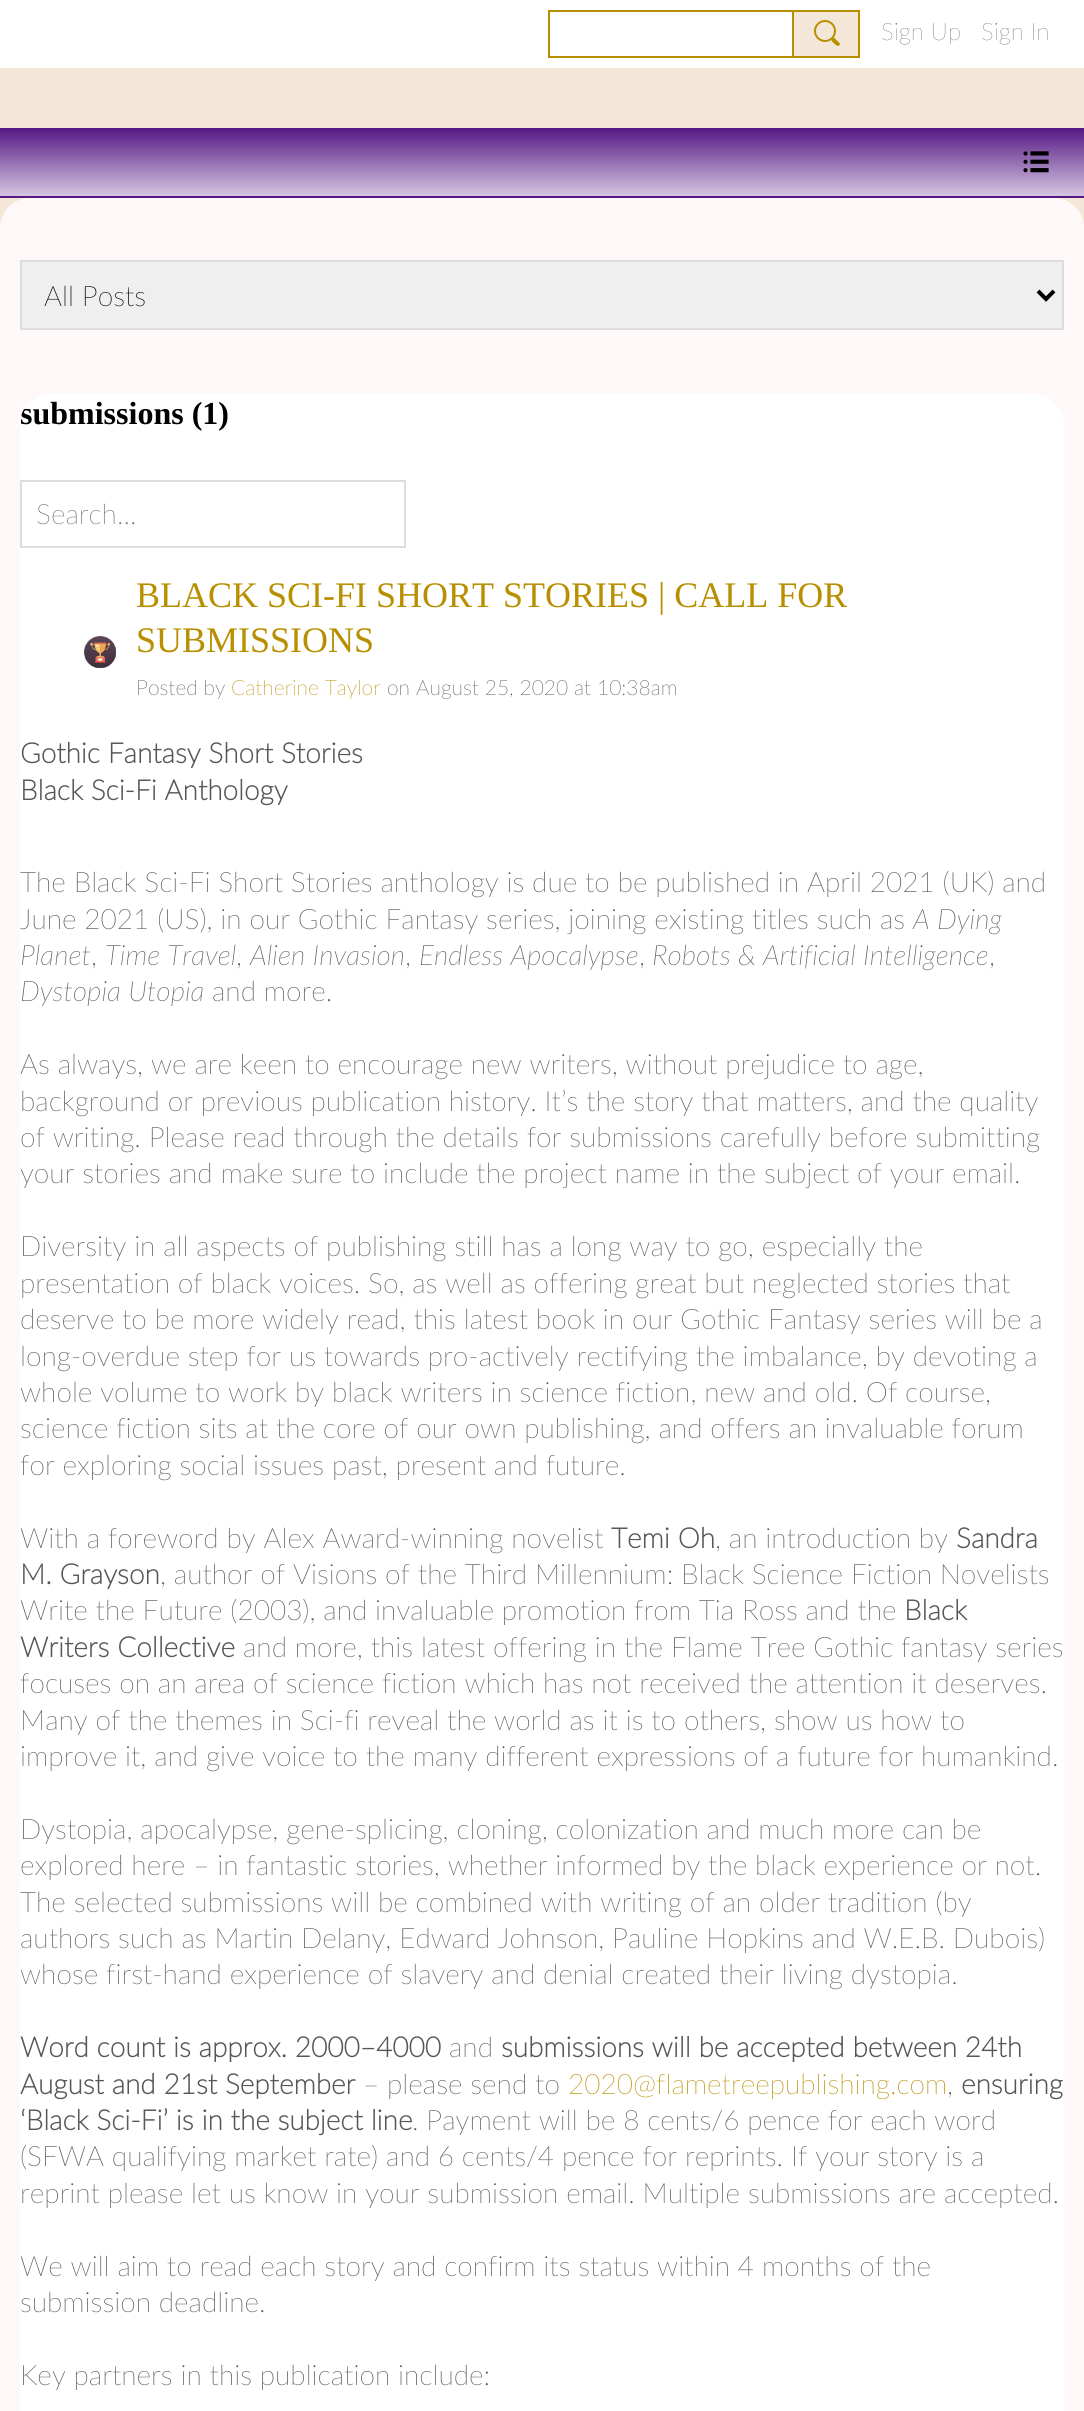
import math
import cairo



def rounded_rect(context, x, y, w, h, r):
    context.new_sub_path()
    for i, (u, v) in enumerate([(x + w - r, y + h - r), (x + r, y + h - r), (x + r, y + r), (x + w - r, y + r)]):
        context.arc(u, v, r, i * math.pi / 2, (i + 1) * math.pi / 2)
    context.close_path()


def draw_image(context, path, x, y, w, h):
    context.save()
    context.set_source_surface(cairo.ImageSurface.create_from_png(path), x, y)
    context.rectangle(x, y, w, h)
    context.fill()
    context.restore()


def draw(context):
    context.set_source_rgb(245 / 255, 231 / 255, 216 / 255)
    context.paint()
    context.set_source_rgb(1, 1, 1)
    context.rectangle(0, 0, 1084, 68)
    context.fill()
    context.rectangle(549, 11, 244, 46)
    context.set_source_rgb(184 / 255, 143 / 255, 0)
    context.stroke()
    context.set_source_rgb(245 / 255, 231 / 255, 216 / 255)
    context.rectangle(793, 11, 66, 46)
    context.fill_preserve()
    context.set_source_rgb(184 / 255, 143 / 255, 0)
    context.stroke()
    context.arc(825, 31, 10, 0, 2 * math.pi)
    context.stroke()
    context.new_path()
    context.move_to(835, 38.5)
    context.line_to(839.5, 43)
    context.curve_to(840, 43.5, 840, 44.5, 839.5, 45)
    context.curve_to(837.5, 48, 833.5, 42.5, 832, 41.5)
    context.curve_to(830.5, 39.5, 833, 36.5, 835, 38.5)
    context.close_path()
    context.fill()
    gradient = cairo.LinearGradient(542, 128, 542, 196)
    gradient.add_color_stop_rgba(0, 86 / 255, 24 / 255, 133 / 255, 1)
    gradient.add_color_stop_rgba(1, 213 / 255, 197 / 255, 225 / 255, 1)
    context.set_source(gradient)
    context.rectangle(0, 128, 1084, 68)
    context.fill()
    context.set_source_rgb(86 / 255, 24 / 255, 133 / 255)
    context.rectangle(0, 196, 1084, 2)
    context.fill()
    draw_image(context, "images/1.png", 1023, 151, 26, 22)
    context.set_source_rgb(254 / 255, 249 / 255, 248 / 255)
    rounded_rect(context, 0, 198, 1084, 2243, 30)
    context.fill()
    context.set_source_rgb(239 / 255, 239 / 255, 239 / 255)
    context.rectangle(21, 261, 1042, 68)
    context.fill_preserve()
    context.set_source_rgb(221 / 255, 221 / 255, 221 / 255)
    context.stroke()
    context.new_path()
    context.move_to(1038, 291)
    context.line_to(1046, 299)
    context.line_to(1054, 291)
    context.set_source_rgb(0, 0, 0)
    context.set_line_width(4)
    context.stroke()
    context.set_source_rgb(1, 1, 1)
    context.new_path()
    context.move_to(52, 394)
    context.line_to(1032, 394)
    context.curve_to(1050, 394, 1064, 408, 1064, 426)
    context.line_to(1064, 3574)
    context.curve_to(1064, 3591, 1050, 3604, 1032, 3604)
    context.line_to(52, 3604)
    context.curve_to(34, 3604, 20, 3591, 20, 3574)
    context.line_to(20, 426)
    context.curve_to(20, 408, 34, 394, 52, 394)
    context.close_path()
    context.fill()
    context.rectangle(21, 481, 384, 66)
    context.set_source_rgb(221 / 255, 221 / 255, 221 / 255)
    context.set_line_width(2)
    context.stroke()
    draw_image(context, "images/2.png", 84, 636, 32, 32)
    context.select_font_face("Lato ExtraLight")
    context.set_font_size(24)
    context.set_source_rgb(31 / 255, 31 / 255, 31 / 255)
    context.move_to(881, 40)
    context.show_text("Sign Up")
    context.move_to(981, 40)
    context.show_text("Sign In")
    context.select_font_face("Lato Light")
    context.set_font_size(28)
    context.set_source_rgb(0, 0, 0)
    context.move_to(44, 306)
    context.show_text("All Posts")
    context.save()
    context.new_path()
    context.move_to(50, 394)
    context.line_to(986, 394)
    context.curve_to(1002.5, 394, 1016, 407.5, 1016, 424)
    context.line_to(1016, 432)
    context.line_to(20, 432)
    context.line_to(20, 424)
    context.curve_to(20, 407.5, 33.5, 394, 50, 394)
    context.close_path()
    context.clip()
    context.select_font_face("Liberation Serif", cairo.FontSlant.NORMAL, cairo.FontWeight.BOLD)
    context.set_font_size(32)
    context.move_to(20, 424)
    context.show_text("submissions (1)")
    context.restore()
    context.set_source_rgb(117 / 255, 117 / 255, 117 / 255)
    context.move_to(36, 524)
    context.show_text("Search...")
    context.select_font_face("Liberation Serif")
    context.set_font_size(36)
    context.set_source_rgb(184 / 255, 143 / 255, 0)
    context.move_to(136, 607)
    context.show_text("BLACK SCI-FI SHORT STORIES | CALL FOR")
    context.move_to(136, 652)
    context.show_text("SUBMISSIONS")
    context.select_font_face("Lato Light")
    context.set_font_size(21)
    context.set_source_rgb(87 / 255, 87 / 255, 87 / 255)
    context.move_to(136, 695)
    context.show_text("Posted by")
    context.set_source_rgb(184 / 255, 143 / 255, 0)
    context.move_to(231, 695)
    context.show_text("Catherine Taylor")
    context.set_source_rgb(87 / 255, 87 / 255, 87 / 255)
    context.move_to(387, 695)
    context.show_text("on August 25, 2020 at 10:38am")
    context.select_font_face("Lato", cairo.FontSlant.NORMAL, cairo.FontWeight.BOLD)
    context.set_font_size(28)
    context.move_to(20, 763)
    context.show_text("Gothic Fantasy Short Stories")
    context.move_to(20, 800)
    context.show_text("Black Sci-Fi Anthology")
    context.select_font_face("Lato Light")
    context.move_to(20, 892)
    context.show_text("The Black Sci-Fi Short Stories anthology is due to be published in April 2021 (UK) and")
    context.move_to(20, 929)
    context.show_text("June 2021 (US), in our Gothic Fantasy series, joining existing titles such as")
    context.select_font_face("Lato Light", cairo.FontSlant.ITALIC)
    context.move_to(913, 929)
    context.show_text("A Dying")
    context.move_to(20, 965)
    context.show_text("Planet")
    context.select_font_face("Lato Light")
    context.move_to(91, 965)
    context.show_text(",")
    context.select_font_face("Lato Light", cairo.FontSlant.ITALIC)
    context.move_to(105, 965)
    context.show_text("Time Travel")
    context.select_font_face("Lato Light")
    context.move_to(236, 965)
    context.show_text(",")
    context.select_font_face("Lato Light", cairo.FontSlant.ITALIC)
    context.move_to(250, 965)
    context.show_text("Alien Invasion")
    context.select_font_face("Lato Light")
    context.move_to(405, 965)
    context.show_text(",")
    context.select_font_face("Lato Light", cairo.FontSlant.ITALIC)
    context.move_to(419, 965)
    context.show_text("Endless Apocalypse")
    context.select_font_face("Lato Light")
    context.move_to(639, 965)
    context.show_text(",")
    context.select_font_face("Lato Light", cairo.FontSlant.ITALIC)
    context.move_to(652, 965)
    context.show_text("Robots & Artificial Intelligence")
    context.select_font_face("Lato Light")
    context.move_to(989, 965)
    context.show_text(",")
    context.select_font_face("Lato Light", cairo.FontSlant.ITALIC)
    context.move_to(20, 1001)
    context.show_text("Dystopia Utopia")
    context.select_font_face("Lato Light")
    context.move_to(212, 1001)
    context.show_text("and more.")
    context.move_to(20, 1074)
    context.show_text("As always, we are keen to encourage new writers, without prejudice to age,")
    context.move_to(20, 1111)
    context.show_text("background or previous publication history. It’s the story that matters, and the quality")
    context.move_to(20, 1147)
    context.show_text("of writing. Please read through the details for submissions carefully before submitting")
    context.move_to(20, 1183)
    context.show_text("your stories and make sure to include the project name in the subject of your email.")
    context.move_to(20, 1256)
    context.show_text("Diversity in all aspects of publishing still has a long way to go, especially the")
    context.move_to(20, 1293)
    context.show_text("presentation of black voices. So, as well as offering great but neglected stories that")
    context.move_to(20, 1329)
    context.show_text("deserve to be more widely read, this latest book in our Gothic Fantasy series will be a")
    context.move_to(20, 1366)
    context.show_text("long-overdue step for us towards pro-actively rectifying the imbalance, by devoting a")
    context.move_to(20, 1402)
    context.show_text("whole volume to work by black writers in science fiction, new and old. Of course,")
    context.move_to(20, 1438)
    context.show_text("science fiction sits at the core of our own publishing, and offers an invaluable forum")
    context.move_to(20, 1475)
    context.show_text("for exploring social issues past, present and future.")
    context.move_to(20, 1548)
    context.show_text("With a foreword by Alex Award-winning novelist")
    context.select_font_face("Lato", cairo.FontSlant.NORMAL, cairo.FontWeight.BOLD)
    context.move_to(611, 1548)
    context.show_text("Temi Oh")
    context.select_font_face("Lato Light")
    context.move_to(715, 1548)
    context.show_text(", an introduction by")
    context.select_font_face("Lato", cairo.FontSlant.NORMAL, cairo.FontWeight.BOLD)
    context.move_to(956, 1548)
    context.show_text("Sandra")
    context.move_to(20, 1584)
    context.show_text("M. Grayson")
    context.select_font_face("Lato Light")
    context.move_to(160, 1584)
    context.show_text(", author of Visions of the Third Millennium: Black Science Fiction Novelists")
    context.move_to(20, 1620)
    context.show_text("Write the Future (2003), and invaluable promotion from Tia Ross and the")
    context.select_font_face("Lato", cairo.FontSlant.NORMAL, cairo.FontWeight.BOLD)
    context.move_to(904, 1620)
    context.show_text("Black")
    context.move_to(20, 1657)
    context.show_text("Writers Collective")
    context.select_font_face("Lato Light")
    context.move_to(243, 1657)
    context.show_text("and more, this latest offering in the Flame Tree Gothic fantasy series")
    context.move_to(20, 1693)
    context.show_text("focuses on an area of science fiction which has not received the attention it deserves.")
    context.move_to(20, 1730)
    context.show_text("Many of the themes in Sci-fi reveal the world as it is to others, show us how to")
    context.move_to(20, 1766)
    context.show_text("improve it, and give voice to the many different expressions of a future for humankind.")
    context.move_to(20, 1839)
    context.show_text("Dystopia, apocalypse, gene-splicing, cloning, colonization and much more can be")
    context.move_to(20, 1875)
    context.show_text("explored here – in fantastic stories, whether informed by the black experience or not.")
    context.move_to(20, 1912)
    context.show_text("The selected submissions will be combined with writing of an older tradition (by")
    context.move_to(20, 1948)
    context.show_text("authors such as Martin Delany, Edward Johnson, Pauline Hopkins and W.E.B. Dubois)")
    context.move_to(20, 1984)
    context.show_text("whose first-hand experience of slavery and denial created their living dystopia.")
    context.select_font_face("Lato", cairo.FontSlant.NORMAL, cairo.FontWeight.BOLD)
    context.move_to(20, 2057)
    context.show_text("Word count is approx. 2000–4000")
    context.select_font_face("Lato Light")
    context.move_to(449, 2057)
    context.show_text("and")
    context.select_font_face("Lato", cairo.FontSlant.NORMAL, cairo.FontWeight.BOLD)
    context.move_to(501, 2057)
    context.show_text("submissions will be accepted between 24th")
    context.move_to(20, 2094)
    context.show_text("August and 21st September")
    context.select_font_face("Lato Light")
    context.move_to(363, 2094)
    context.show_text("– please send to")
    context.set_source_rgb(184 / 255, 143 / 255, 0)
    context.move_to(568, 2094)
    context.show_text("2020@flametreepublishing.com")
    context.set_source_rgb(87 / 255, 87 / 255, 87 / 255)
    context.move_to(947, 2094)
    context.show_text(",")
    context.select_font_face("Lato", cairo.FontSlant.NORMAL, cairo.FontWeight.BOLD)
    context.move_to(961, 2094)
    context.show_text("ensuring")
    context.move_to(20, 2130)
    context.show_text("‘Black Sci-Fi’ is in the subject line")
    context.select_font_face("Lato Light")
    context.move_to(412, 2130)
    context.show_text(". Payment will be 8 cents/6 pence for each word")
    context.move_to(20, 2166)
    context.show_text("(SFWA qualifying market rate) and 6 cents/4 pence for reprints. If your story is a")
    context.move_to(20, 2203)
    context.show_text("reprint please let us know in your submission email. Multiple submissions are accepted.")
    context.move_to(20, 2276)
    context.show_text("We will aim to read each story and confirm its status within 4 months of the")
    context.move_to(20, 2312)
    context.show_text("submission deadline.")
    context.move_to(20, 2385)
    context.show_text("Key partners in this publication include:")


surface = cairo.ImageSurface(cairo.Format.RGB24, 1084, 2411)
context = cairo.Context(surface)
options = cairo.FontOptions()
options.set_hint_metrics(cairo.HintMetrics.OFF)
options.set_hint_style(cairo.HintStyle.NONE)
context.set_font_options(options)
context.set_miter_limit(4)
draw(context)
surface.write_to_png("out.png")
